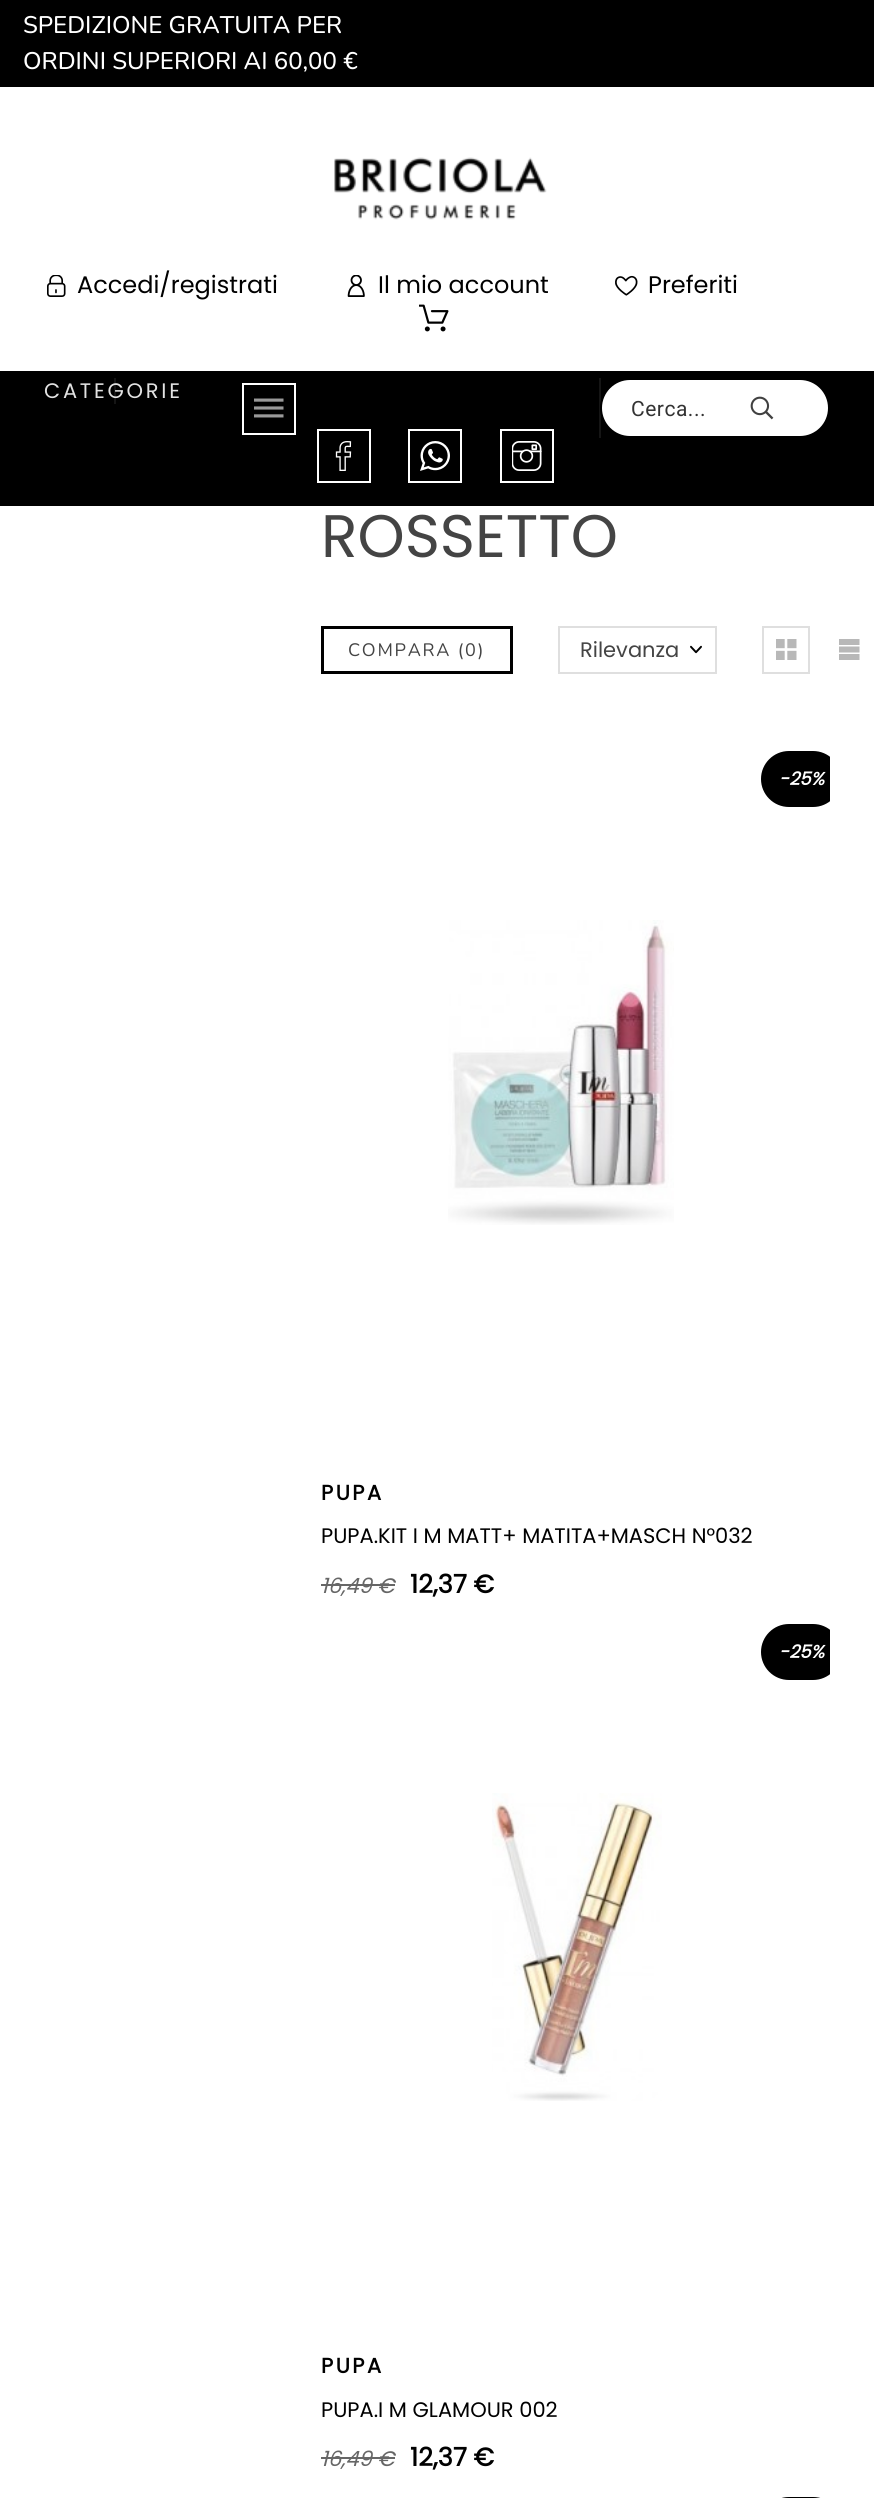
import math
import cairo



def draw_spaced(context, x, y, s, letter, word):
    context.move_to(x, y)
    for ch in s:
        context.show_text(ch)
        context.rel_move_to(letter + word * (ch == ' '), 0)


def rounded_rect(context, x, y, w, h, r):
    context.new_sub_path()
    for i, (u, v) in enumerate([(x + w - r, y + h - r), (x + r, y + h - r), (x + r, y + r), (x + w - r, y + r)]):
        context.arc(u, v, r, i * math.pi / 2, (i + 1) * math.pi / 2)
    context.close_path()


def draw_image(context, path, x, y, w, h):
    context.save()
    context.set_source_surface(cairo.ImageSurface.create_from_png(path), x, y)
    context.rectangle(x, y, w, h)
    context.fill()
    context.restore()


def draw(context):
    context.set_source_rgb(1, 1, 1)
    context.paint()
    context.set_source_rgb(0, 0, 0)
    context.rectangle(0, 0, 874, 87)
    context.fill()
    draw_image(context, "images/1.png", 334, 157, 213, 63)
    draw_image(context, "images/2.png", 47, 275, 19, 22)
    draw_image(context, "images/3.png", 347, 275, 18, 22)
    draw_image(context, "images/4.png", 615, 275, 23, 21)
    draw_image(context, "images/5.png", 419, 304, 30, 28)
    context.rectangle(0, 371, 874, 135)
    context.fill()
    context.set_source_rgb(21 / 255, 21 / 255, 21 / 255)
    context.rectangle(114, 378, 2, 26)
    context.fill()
    context.rectangle(243, 384, 52, 50)
    context.set_source_rgb(1, 1, 1)
    context.stroke()
    draw_image(context, "images/6.png", 254, 398, 30, 20)
    context.set_source_rgb(21 / 255, 21 / 255, 21 / 255)
    context.rectangle(599, 378, 2, 60)
    context.fill()
    context.set_source_rgb(1, 1, 1)
    rounded_rect(context, 601, 379, 228, 58, 29)
    context.fill_preserve()
    context.set_source_rgb(0, 0, 0)
    context.stroke()
    draw_image(context, "images/7.png", 750, 396, 24, 24)
    context.rectangle(318, 430, 52, 52)
    context.set_source_rgb(1, 1, 1)
    context.stroke()
    draw_image(context, "images/8.png", 335, 441, 17, 30)
    context.rectangle(409, 430, 52, 52)
    context.stroke()
    draw_image(context, "images/9.png", 420, 441, 30, 30)
    context.rectangle(501, 430, 52, 52)
    context.stroke()
    draw_image(context, "images/10.png", 512, 441, 30, 30)
    context.rectangle(322.5, 627.5, 189, 45)
    context.set_source_rgb(0, 0, 0)
    context.set_line_width(3)
    context.stroke()
    context.rectangle(559, 627, 157, 46)
    context.set_source_rgb(223 / 255, 223 / 255, 223 / 255)
    context.set_line_width(2)
    context.stroke()
    draw_image(context, "images/11.png", 690, 645, 12, 9)
    context.rectangle(763, 627, 46, 46)
    context.stroke()
    draw_image(context, "images/12.png", 776, 639, 21, 21)
    draw_image(context, "images/13.png", 839, 639, 21, 21)
    context.save()
    context.rectangle(321, 749, 509, 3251)
    context.clip()
    context.set_source_rgb(0, 0, 0)
    rounded_rect(context, 760, 750, 82, 58, 29)
    context.fill_preserve()
    context.set_source_rgb(1, 1, 1)
    context.stroke()
    context.restore()
    context.set_source_rgb(102 / 255, 102 / 255, 102 / 255)
    context.rectangle(321, 1584, 74, 2)
    context.fill()
    draw_image(context, "images/14.png", 448, 920, 226, 305)
    context.save()
    context.rectangle(321, 749, 509, 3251)
    context.clip()
    context.set_source_rgb(0, 0, 0)
    rounded_rect(context, 760, 1623, 82, 58, 29)
    context.fill_preserve()
    context.set_source_rgb(1, 1, 1)
    context.stroke()
    context.restore()
    context.rectangle(321, 2457, 74, 2)
    context.fill()
    draw_image(context, "images/15.png", 492, 1793, 170, 308)
    context.set_source_rgb(0, 0, 0)
    rounded_rect(context, 760, 2496, 82, 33, 29)
    context.fill_preserve()
    context.set_source_rgb(1, 1, 1)
    context.stroke()
    context.select_font_face("Nunito Medium")
    context.set_font_size(24)
    context.move_to(23, 33)
    context.show_text("SPEDIZIONE GRATUITA PER")
    context.move_to(23, 69)
    context.show_text("ORDINI SUPERIORI AI 60,00 €")
    context.select_font_face("Poppins")
    context.set_source_rgb(0, 0, 0)
    context.move_to(77, 293)
    context.show_text("Accedi/registrati")
    context.move_to(378, 293)
    context.show_text("Il mio account")
    context.move_to(648, 293)
    context.show_text("Preferiti")
    context.set_font_size(21)
    context.set_source_rgb(226 / 255, 226 / 255, 226 / 255)
    draw_spaced(context, 44, 398, "CATEGORIE", 2.75, 0)
    context.select_font_face("Roboto")
    context.set_source_rgb(51 / 255, 51 / 255, 51 / 255)
    draw_spaced(context, 631, 416, "Cerca...", 0.5, 0)
    context.select_font_face("Poppins")
    context.set_font_size(60)
    context.set_source_rgb(68 / 255, 68 / 255, 68 / 255)
    context.move_to(321, 557)
    context.show_text("ROSSETTO")
    context.select_font_face("Nunito")
    context.set_font_size(18)
    draw_spaced(context, 348, 656, "COMPARA (0)", 1.75, 0)
    context.select_font_face("Poppins")
    context.set_font_size(21)
    context.move_to(580, 657)
    context.show_text("Rilevanza")
    context.select_font_face("Poppins", cairo.FontSlant.ITALIC, cairo.FontWeight.BOLD)
    context.set_font_size(18)
    context.set_source_rgb(1, 1, 1)
    context.move_to(779, 785)
    context.show_text("-25%")
    context.select_font_face("Poppins", cairo.FontSlant.NORMAL, cairo.FontWeight.BOLD)
    context.set_font_size(21)
    context.set_source_rgb(0, 0, 0)
    draw_spaced(context, 321, 1500, "PUPA", 2.5, 0)
    context.select_font_face("Poppins")
    context.move_to(321, 1543)
    context.show_text("PUPA.KIT I M MATT+ MATITA+MASCH N°032")
    context.select_font_face("Poppins", cairo.FontSlant.ITALIC)
    context.set_source_rgb(102 / 255, 102 / 255, 102 / 255)
    context.move_to(321, 1593)
    context.show_text("16,49 €")
    context.select_font_face("Poppins", cairo.FontSlant.NORMAL, cairo.FontWeight.BOLD)
    context.set_font_size(25.5)
    context.set_source_rgb(0, 0, 0)
    context.move_to(410, 1593)
    context.show_text("12,37 €")
    context.select_font_face("Poppins", cairo.FontSlant.ITALIC, cairo.FontWeight.BOLD)
    context.set_font_size(18)
    context.set_source_rgb(1, 1, 1)
    context.move_to(779, 1658)
    context.show_text("-25%")
    context.select_font_face("Poppins", cairo.FontSlant.NORMAL, cairo.FontWeight.BOLD)
    context.set_font_size(21)
    context.set_source_rgb(0, 0, 0)
    draw_spaced(context, 321, 2373, "PUPA", 2.5, 0)
    context.select_font_face("Poppins")
    context.move_to(321, 2417)
    context.show_text("PUPA.I M GLAMOUR 002")
    context.select_font_face("Poppins", cairo.FontSlant.ITALIC)
    context.set_source_rgb(102 / 255, 102 / 255, 102 / 255)
    context.move_to(321, 2466)
    context.show_text("16,49 €")
    context.select_font_face("Poppins", cairo.FontSlant.NORMAL, cairo.FontWeight.BOLD)
    context.set_font_size(25.5)
    context.set_source_rgb(0, 0, 0)
    context.move_to(410, 2466)
    context.show_text("12,37 €")


surface = cairo.ImageSurface(cairo.Format.RGB24, 874, 2498)
context = cairo.Context(surface)
options = cairo.FontOptions()
options.set_hint_metrics(cairo.HintMetrics.OFF)
options.set_hint_style(cairo.HintStyle.NONE)
context.set_font_options(options)
context.set_miter_limit(4)
draw(context)
surface.write_to_png("out.png")
